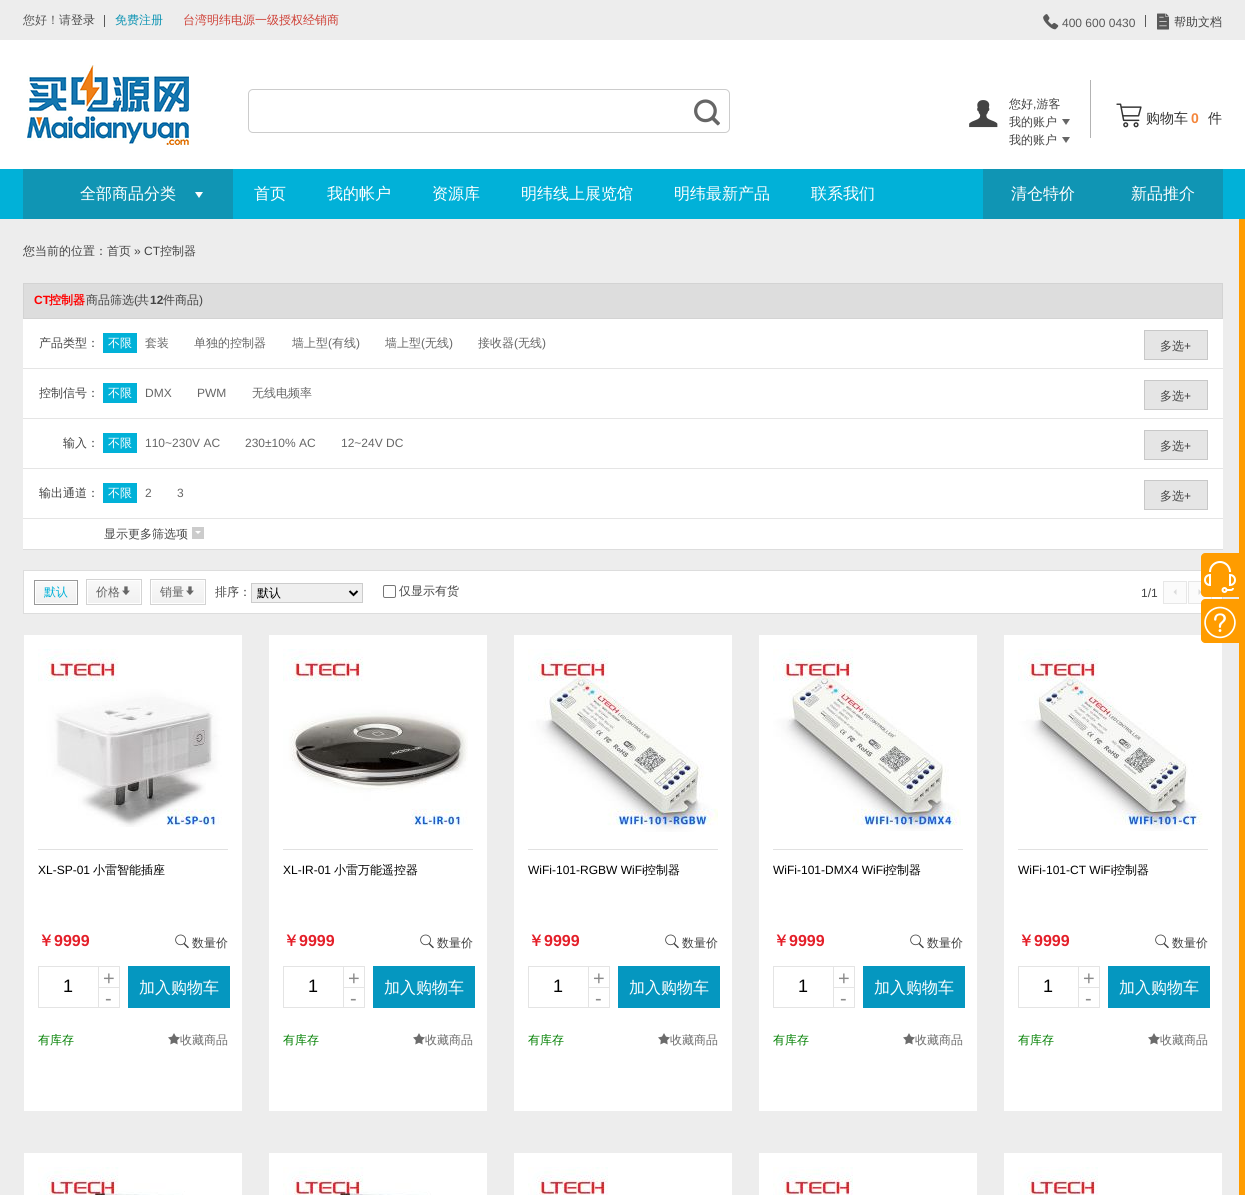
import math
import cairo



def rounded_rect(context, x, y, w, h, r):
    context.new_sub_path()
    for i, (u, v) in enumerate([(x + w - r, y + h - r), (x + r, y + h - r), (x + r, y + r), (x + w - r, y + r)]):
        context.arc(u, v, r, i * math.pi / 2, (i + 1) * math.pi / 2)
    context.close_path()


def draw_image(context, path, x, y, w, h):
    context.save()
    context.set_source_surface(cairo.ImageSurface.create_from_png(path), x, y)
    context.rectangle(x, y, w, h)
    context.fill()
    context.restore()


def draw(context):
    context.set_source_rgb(237 / 255, 237 / 255, 237 / 255)
    context.paint()
    context.set_source_rgb(89 / 255, 89 / 255, 89 / 255)
    context.rectangle(104, 15, 1, 12)
    context.fill()
    draw_image(context, "images/1.png", 1043, 14, 16, 16)
    context.rectangle(1145, 15, 1, 12)
    context.fill()
    draw_image(context, "images/2.png", 1157, 13, 12, 17)
    context.set_source_rgb(1, 1, 1)
    context.rectangle(0, 40, 1245, 129)
    context.fill()
    draw_image(context, "images/3.png", 27, 65, 162, 80)
    rounded_rect(context, 248.5, 89.5, 481, 43, 4.5)
    context.set_source_rgb(204 / 255, 204 / 255, 204 / 255)
    context.set_line_width(1)
    context.stroke()
    draw_image(context, "images/4.png", 694, 99, 26, 27)
    draw_image(context, "images/5.png", 969, 100, 29, 28)
    context.set_source_rgb(102 / 255, 102 / 255, 102 / 255)
    context.new_path()
    context.move_to(1062, 119)
    context.line_to(1070, 119)
    context.line_to(1066, 125)
    context.close_path()
    context.fill()
    context.new_path()
    context.move_to(1062, 137)
    context.line_to(1070, 137)
    context.line_to(1066, 143)
    context.close_path()
    context.fill()
    context.set_source_rgb(179 / 255, 179 / 255, 179 / 255)
    context.rectangle(1090, 80, 1, 58)
    context.fill()
    draw_image(context, "images/6.png", 1116, 103, 26, 25)
    context.set_source_rgb(1 / 255, 177 / 255, 216 / 255)
    context.rectangle(0, 169, 1245, 50)
    context.fill()
    context.set_source_rgb(16 / 255, 149 / 255, 180 / 255)
    context.rectangle(23, 169, 210, 50)
    context.fill()
    context.set_source_rgb(1, 1, 1)
    context.new_path()
    context.move_to(195, 192)
    context.line_to(203, 192)
    context.line_to(199, 198)
    context.close_path()
    context.fill()
    context.set_source_rgb(16 / 255, 149 / 255, 180 / 255)
    context.rectangle(983, 169, 240, 50)
    context.fill()
    context.rectangle(23.5, 283.5, 1199, 35)
    context.set_source_rgb(211 / 255, 211 / 255, 211 / 255)
    context.stroke()
    context.set_source_rgb(221 / 255, 221 / 255, 221 / 255)
    context.rectangle(24, 284, 1198, 34)
    context.fill()
    context.set_source_rgb(1, 1, 1)
    context.rectangle(23, 319, 1200, 230)
    context.fill()
    context.set_source_rgb(221 / 255, 221 / 255, 221 / 255)
    context.rectangle(23, 549, 1200, 1)
    context.fill()
    context.set_source_rgb(229 / 255, 229 / 255, 229 / 255)
    context.rectangle(23, 368, 1200, 1)
    context.fill()
    context.set_source_rgb(1 / 255, 177 / 255, 216 / 255)
    context.rectangle(103, 333, 34, 20)
    context.fill()
    context.set_source_rgb(229 / 255, 229 / 255, 229 / 255)
    context.rectangle(1144.5, 330.5, 63, 29)
    context.fill_preserve()
    context.set_source_rgb(200 / 255, 200 / 255, 200 / 255)
    context.stroke()
    context.set_source_rgb(229 / 255, 229 / 255, 229 / 255)
    context.rectangle(23, 418, 1200, 1)
    context.fill()
    context.set_source_rgb(1 / 255, 177 / 255, 216 / 255)
    context.rectangle(103, 383, 34, 20)
    context.fill()
    context.set_source_rgb(229 / 255, 229 / 255, 229 / 255)
    context.rectangle(1144.5, 380.5, 63, 29)
    context.fill_preserve()
    context.set_source_rgb(200 / 255, 200 / 255, 200 / 255)
    context.stroke()
    context.set_source_rgb(229 / 255, 229 / 255, 229 / 255)
    context.rectangle(23, 468, 1200, 1)
    context.fill()
    context.set_source_rgb(1 / 255, 177 / 255, 216 / 255)
    context.rectangle(103, 433, 34, 20)
    context.fill()
    context.set_source_rgb(229 / 255, 229 / 255, 229 / 255)
    context.rectangle(1144.5, 430.5, 63, 29)
    context.fill_preserve()
    context.set_source_rgb(200 / 255, 200 / 255, 200 / 255)
    context.stroke()
    context.set_source_rgb(229 / 255, 229 / 255, 229 / 255)
    context.rectangle(23, 518, 1200, 1)
    context.fill()
    context.set_source_rgb(1 / 255, 177 / 255, 216 / 255)
    context.rectangle(103, 483, 34, 20)
    context.fill()
    context.set_source_rgb(229 / 255, 229 / 255, 229 / 255)
    context.rectangle(1144.5, 480.5, 63, 29)
    context.fill_preserve()
    context.set_source_rgb(200 / 255, 200 / 255, 200 / 255)
    context.stroke()
    context.set_source_rgb(204 / 255, 204 / 255, 204 / 255)
    context.rectangle(192, 527, 12, 12)
    context.fill()
    context.set_source_rgb(1, 1, 1)
    context.new_path()
    context.move_to(195, 531)
    context.line_to(198, 534)
    context.line_to(201, 531)
    context.close_path()
    context.fill()
    context.rectangle(23.5, 570.5, 1199, 43)
    context.fill_preserve()
    context.set_source_rgb(221 / 255, 221 / 255, 221 / 255)
    context.stroke()
    gradient = cairo.LinearGradient(56, 581, 56, 604)
    gradient.add_color_stop_rgba(0, 249 / 255, 249 / 255, 249 / 255, 1)
    gradient.add_color_stop_rgba(1, 240 / 255, 240 / 255, 240 / 255, 1)
    context.set_source(gradient)
    context.rectangle(36, 582, 40, 21)
    context.fill()
    context.rectangle(34.5, 580.5, 43, 24)
    context.set_source_rgb(153 / 255, 153 / 255, 153 / 255)
    context.stroke()
    gradient = cairo.LinearGradient(114, 580, 114, 604)
    gradient.add_color_stop_rgba(0, 249 / 255, 249 / 255, 249 / 255, 1)
    gradient.add_color_stop_rgba(1, 240 / 255, 240 / 255, 240 / 255, 1)
    context.set_source(gradient)
    context.rectangle(88, 581, 52, 22)
    context.fill()
    context.rectangle(86.5, 579.5, 55, 25)
    context.set_source_rgb(211 / 255, 211 / 255, 211 / 255)
    context.stroke()
    draw_image(context, "images/7.png", 122, 586, 8, 9)
    gradient = cairo.LinearGradient(178, 580, 178, 604)
    gradient.add_color_stop_rgba(0, 249 / 255, 249 / 255, 249 / 255, 1)
    gradient.add_color_stop_rgba(1, 240 / 255, 240 / 255, 240 / 255, 1)
    context.set_source(gradient)
    context.rectangle(152, 581, 52, 22)
    context.fill()
    context.rectangle(150.5, 579.5, 55, 25)
    context.set_source_rgb(211 / 255, 211 / 255, 211 / 255)
    context.stroke()
    draw_image(context, "images/7.png", 186, 586, 8, 9)
    context.set_source_rgb(239 / 255, 239 / 255, 239 / 255)
    context.rectangle(251.5, 583.5, 111, 19)
    context.fill_preserve()
    context.set_source_rgb(204 / 255, 204 / 255, 204 / 255)
    context.stroke()
    context.new_path()
    context.move_to(349.5, 591)
    context.line_to(353.5, 595)
    context.line_to(357.5, 591)
    context.set_source_rgb(0, 0, 0)
    context.set_line_width(2)
    context.stroke()
    rounded_rect(context, 383.5, 585.5, 12, 12, 1.5)
    context.set_source_rgb(118 / 255, 118 / 255, 118 / 255)
    context.set_line_width(1)
    context.stroke()
    context.set_source_rgb(251 / 255, 251 / 255, 251 / 255)
    context.rectangle(1163.5, 581.5, 23, 22)
    context.fill_preserve()
    context.set_source_rgb(231 / 255, 231 / 255, 231 / 255)
    context.stroke()
    context.set_source_rgb(219 / 255, 219 / 255, 219 / 255)
    context.new_path()
    context.move_to(1176.5, 589)
    context.line_to(1173.5, 592)
    context.line_to(1176.5, 595)
    context.close_path()
    context.fill()
    context.set_source_rgb(251 / 255, 251 / 255, 251 / 255)
    context.rectangle(1188.5, 581.5, 23, 22)
    context.fill_preserve()
    context.set_source_rgb(231 / 255, 231 / 255, 231 / 255)
    context.stroke()
    context.set_source_rgb(219 / 255, 219 / 255, 219 / 255)
    context.new_path()
    context.move_to(1198.5, 595)
    context.line_to(1201.5, 592)
    context.line_to(1198.5, 589)
    context.close_path()
    context.fill()
    context.set_source_rgb(1, 1, 1)
    context.rectangle(24, 635, 218, 476)
    context.fill()
    draw_image(context, "images/8.png", 38, 649, 184, 178)
    context.set_source_rgb(225 / 255, 225 / 255, 225 / 255)
    context.rectangle(38, 849, 190, 1)
    context.fill()
    draw_image(context, "images/9.png", 175, 934, 14, 15)
    context.rectangle(38.5, 966.5, 81, 41)
    context.set_source_rgb(228 / 255, 228 / 255, 228 / 255)
    context.stroke()
    context.rectangle(98.5, 986.5, 21, 21)
    context.stroke()
    context.set_source_rgb(1, 1, 1)
    context.rectangle(99, 986, 20, 1)
    context.fill()
    context.rectangle(98.5, 966.5, 21, 21)
    context.set_source_rgb(228 / 255, 228 / 255, 228 / 255)
    context.stroke()
    context.set_source_rgb(5 / 255, 151 / 255, 192 / 255)
    context.rectangle(128, 966, 102, 42)
    context.fill()
    draw_image(context, "images/10.png", 168, 1033, 12, 12)
    context.set_source_rgb(1, 1, 1)
    context.rectangle(269, 635, 218, 476)
    context.fill()
    draw_image(context, "images/11.png", 283, 649, 185, 177)
    context.set_source_rgb(225 / 255, 225 / 255, 225 / 255)
    context.rectangle(283, 849, 190, 1)
    context.fill()
    draw_image(context, "images/9.png", 420, 934, 14, 15)
    context.rectangle(283.5, 966.5, 81, 41)
    context.set_source_rgb(228 / 255, 228 / 255, 228 / 255)
    context.stroke()
    context.rectangle(343.5, 986.5, 21, 21)
    context.stroke()
    context.set_source_rgb(1, 1, 1)
    context.rectangle(344, 986, 20, 1)
    context.fill()
    context.rectangle(343.5, 966.5, 21, 21)
    context.set_source_rgb(228 / 255, 228 / 255, 228 / 255)
    context.stroke()
    context.set_source_rgb(5 / 255, 151 / 255, 192 / 255)
    context.rectangle(373, 966, 102, 42)
    context.fill()
    draw_image(context, "images/10.png", 413, 1033, 12, 12)
    context.set_source_rgb(1, 1, 1)
    context.rectangle(514, 635, 218, 476)
    context.fill()
    draw_image(context, "images/12.png", 528, 649, 190, 183)
    context.set_source_rgb(225 / 255, 225 / 255, 225 / 255)
    context.rectangle(528, 849, 190, 1)
    context.fill()
    draw_image(context, "images/9.png", 665, 934, 14, 15)
    context.rectangle(528.5, 966.5, 81, 41)
    context.set_source_rgb(228 / 255, 228 / 255, 228 / 255)
    context.stroke()
    context.rectangle(588.5, 986.5, 21, 21)
    context.stroke()
    context.set_source_rgb(1, 1, 1)
    context.rectangle(589, 986, 20, 1)
    context.fill()
    context.rectangle(588.5, 966.5, 21, 21)
    context.set_source_rgb(228 / 255, 228 / 255, 228 / 255)
    context.stroke()
    context.set_source_rgb(5 / 255, 151 / 255, 192 / 255)
    context.rectangle(618, 966, 102, 42)
    context.fill()
    draw_image(context, "images/10.png", 658, 1033, 12, 12)
    context.set_source_rgb(1, 1, 1)
    context.rectangle(759, 635, 218, 476)
    context.fill()
    draw_image(context, "images/13.png", 773, 649, 188, 182)
    context.set_source_rgb(225 / 255, 225 / 255, 225 / 255)
    context.rectangle(773, 849, 190, 1)
    context.fill()
    draw_image(context, "images/9.png", 910, 934, 14, 15)
    context.rectangle(773.5, 966.5, 81, 41)
    context.set_source_rgb(228 / 255, 228 / 255, 228 / 255)
    context.stroke()
    context.rectangle(833.5, 986.5, 21, 21)
    context.stroke()
    context.set_source_rgb(1, 1, 1)
    context.rectangle(834, 986, 20, 1)
    context.fill()
    context.rectangle(833.5, 966.5, 21, 21)
    context.set_source_rgb(228 / 255, 228 / 255, 228 / 255)
    context.stroke()
    context.set_source_rgb(5 / 255, 151 / 255, 192 / 255)
    context.rectangle(863, 966, 102, 42)
    context.fill()
    draw_image(context, "images/10.png", 903, 1033, 12, 12)
    context.set_source_rgb(1, 1, 1)
    context.rectangle(1004, 635, 218, 476)
    context.fill()
    draw_image(context, "images/14.png", 1018, 649, 185, 182)
    context.set_source_rgb(225 / 255, 225 / 255, 225 / 255)
    context.rectangle(1018, 849, 190, 1)
    context.fill()
    draw_image(context, "images/9.png", 1155, 934, 14, 15)
    context.rectangle(1018.5, 966.5, 81, 41)
    context.set_source_rgb(228 / 255, 228 / 255, 228 / 255)
    context.stroke()
    context.rectangle(1078.5, 986.5, 21, 21)
    context.stroke()
    context.set_source_rgb(1, 1, 1)
    context.rectangle(1079, 986, 20, 1)
    context.fill()
    context.rectangle(1078.5, 966.5, 21, 21)
    context.set_source_rgb(228 / 255, 228 / 255, 228 / 255)
    context.stroke()
    context.set_source_rgb(5 / 255, 151 / 255, 192 / 255)
    context.rectangle(1108, 966, 102, 42)
    context.fill()
    draw_image(context, "images/10.png", 1148, 1033, 12, 12)
    context.set_source_rgb(1, 1, 1)
    context.rectangle(24, 1153, 218, 42)
    context.fill()
    draw_image(context, "images/15.png", 38, 1167, 147, 28)
    context.rectangle(269, 1153, 218, 42)
    context.fill()
    draw_image(context, "images/16.png", 283, 1167, 148, 28)
    context.rectangle(514, 1153, 218, 42)
    context.fill()
    draw_image(context, "images/17.png", 528, 1167, 80, 28)
    context.rectangle(759, 1153, 218, 42)
    context.fill()
    draw_image(context, "images/18.png", 773, 1167, 80, 28)
    context.rectangle(1004, 1153, 218, 42)
    context.fill()
    draw_image(context, "images/19.png", 1018, 1167, 80, 28)
    context.set_source_rgb(1, 156 / 255, 0)
    context.rectangle(1239, 219, 6, 976)
    context.fill()
    context.new_path()
    context.move_to(1205, 553)
    context.line_to(1239, 553)
    context.line_to(1239, 597)
    context.line_to(1205, 597)
    context.curve_to(1203, 597, 1201, 595, 1201, 593)
    context.line_to(1201, 557)
    context.curve_to(1201, 555, 1203, 553, 1205, 553)
    context.close_path()
    context.fill()
    draw_image(context, "images/20.png", 1204, 561, 32, 32)
    context.new_path()
    context.move_to(1205, 599)
    context.line_to(1239, 599)
    context.line_to(1239, 643)
    context.line_to(1205, 643)
    context.curve_to(1203, 643, 1201, 641, 1201, 639)
    context.line_to(1201, 603)
    context.curve_to(1201, 601, 1203, 599, 1205, 599)
    context.close_path()
    context.fill()
    draw_image(context, "images/21.png", 1204, 606, 32, 33)
    context.select_font_face("WenQuanYi Zen Hei Medium")
    context.set_font_size(12)
    context.set_source_rgb(89 / 255, 89 / 255, 89 / 255)
    context.move_to(23, 24)
    context.show_text("您好！请")
    context.set_source_rgb(68 / 255, 68 / 255, 68 / 255)
    context.move_to(71, 24)
    context.show_text("登录")
    context.set_source_rgb(16 / 255, 149 / 255, 180 / 255)
    context.move_to(115, 24)
    context.show_text("免费注册")
    context.set_source_rgb(207 / 255, 65 / 255, 55 / 255)
    context.move_to(183, 24)
    context.show_text("台湾明纬电源一级授权经销商")
    context.select_font_face("Liberation Sans")
    context.set_source_rgb(89 / 255, 89 / 255, 89 / 255)
    context.move_to(1062, 27)
    context.show_text("400 600 0430")
    context.select_font_face("WenQuanYi Zen Hei Medium")
    context.set_source_rgb(68 / 255, 68 / 255, 68 / 255)
    context.move_to(1174, 26)
    context.show_text("帮助文档")
    context.move_to(1009, 108)
    context.show_text("您好 游客")
    context.select_font_face("Liberation Sans")
    context.move_to(1033, 108)
    context.show_text(",")
    context.select_font_face("WenQuanYi Zen Hei Medium")
    context.move_to(1009, 126)
    context.show_text("我的账户")
    context.move_to(1009, 144)
    context.show_text("我的账户")
    context.set_font_size(14)
    context.set_source_rgb(51 / 255, 51 / 255, 51 / 255)
    context.move_to(1146, 123)
    context.show_text("购物车")
    context.select_font_face("Liberation Sans", cairo.FontSlant.NORMAL, cairo.FontWeight.BOLD)
    context.set_source_rgb(244 / 255, 134 / 255, 60 / 255)
    context.move_to(1191, 123)
    context.show_text("0")
    context.select_font_face("WenQuanYi Zen Hei Medium")
    context.set_source_rgb(51 / 255, 51 / 255, 51 / 255)
    context.move_to(1208, 123)
    context.show_text("件")
    context.set_font_size(16)
    context.set_source_rgb(1, 1, 1)
    context.move_to(80, 199)
    context.show_text("全部商品分类")
    context.move_to(254, 199)
    context.show_text("首页")
    context.move_to(327, 199)
    context.show_text("我的帐户")
    context.move_to(432, 199)
    context.show_text("资源库")
    context.move_to(521, 199)
    context.show_text("明纬线上展览馆")
    context.move_to(674, 199)
    context.show_text("明纬最新产品")
    context.move_to(811, 199)
    context.show_text("联系我们")
    context.move_to(1011, 199)
    context.show_text("清仓特价")
    context.move_to(1131, 199)
    context.show_text("新品推介")
    context.set_font_size(12)
    context.set_source_rgb(68 / 255, 68 / 255, 68 / 255)
    context.move_to(23, 255)
    context.show_text("您当前的位置：首页")
    context.select_font_face("Liberation Sans")
    context.move_to(134, 255)
    context.show_text("» CT")
    context.select_font_face("WenQuanYi Zen Hei Medium")
    context.move_to(160, 255)
    context.show_text("控制器")
    context.select_font_face("Liberation Sans", cairo.FontSlant.NORMAL, cairo.FontWeight.BOLD)
    context.set_source_rgb(1, 0, 0)
    context.move_to(34, 304)
    context.show_text("CT")
    context.select_font_face("WenQuanYi Zen Hei", cairo.FontSlant.NORMAL, cairo.FontWeight.BOLD)
    context.move_to(49, 304)
    context.show_text("控制器")
    context.select_font_face("WenQuanYi Zen Hei Medium")
    context.set_source_rgb(68 / 255, 68 / 255, 68 / 255)
    context.move_to(86, 304)
    context.show_text("商品筛选")
    context.select_font_face("Liberation Sans")
    context.move_to(134, 304)
    context.show_text("(")
    context.select_font_face("WenQuanYi Zen Hei Medium")
    context.move_to(137, 304)
    context.show_text("共")
    context.select_font_face("Liberation Sans", cairo.FontSlant.NORMAL, cairo.FontWeight.BOLD)
    context.move_to(150, 304)
    context.show_text("12")
    context.select_font_face("WenQuanYi Zen Hei Medium")
    context.move_to(163, 304)
    context.show_text("件商品")
    context.select_font_face("Liberation Sans")
    context.move_to(199, 304)
    context.show_text(")")
    context.select_font_face("WenQuanYi Zen Hei Medium")
    context.move_to(39, 347)
    context.show_text("产品类型：")
    context.set_source_rgb(1, 1, 1)
    context.move_to(108, 347)
    context.show_text("不限")
    context.set_source_rgb(102 / 255, 102 / 255, 102 / 255)
    context.move_to(145, 347)
    context.show_text("套装")
    context.move_to(194, 347)
    context.show_text("单独的控制器")
    context.move_to(292, 347)
    context.show_text("墙上型")
    context.select_font_face("Liberation Sans")
    context.move_to(328, 347)
    context.show_text("(")
    context.select_font_face("WenQuanYi Zen Hei Medium")
    context.move_to(332, 347)
    context.show_text("有线")
    context.select_font_face("Liberation Sans")
    context.move_to(356, 347)
    context.show_text(")")
    context.select_font_face("WenQuanYi Zen Hei Medium")
    context.move_to(385, 347)
    context.show_text("墙上型")
    context.select_font_face("Liberation Sans")
    context.move_to(421, 347)
    context.show_text("(")
    context.select_font_face("WenQuanYi Zen Hei Medium")
    context.move_to(425, 347)
    context.show_text("无线")
    context.select_font_face("Liberation Sans")
    context.move_to(449, 347)
    context.show_text(")")
    context.select_font_face("WenQuanYi Zen Hei Medium")
    context.move_to(478, 347)
    context.show_text("接收器")
    context.select_font_face("Liberation Sans")
    context.move_to(514, 347)
    context.show_text("(")
    context.select_font_face("WenQuanYi Zen Hei Medium")
    context.move_to(518, 347)
    context.show_text("无线")
    context.select_font_face("Liberation Sans")
    context.move_to(542, 347)
    context.show_text(")")
    context.select_font_face("WenQuanYi Zen Hei Medium")
    context.set_source_rgb(68 / 255, 68 / 255, 68 / 255)
    context.move_to(1160, 350)
    context.show_text("多选")
    context.select_font_face("Liberation Sans")
    context.move_to(1184, 350)
    context.show_text("+")
    context.select_font_face("WenQuanYi Zen Hei Medium")
    context.move_to(39, 397)
    context.show_text("控制信号：")
    context.set_source_rgb(1, 1, 1)
    context.move_to(108, 397)
    context.show_text("不限")
    context.select_font_face("Liberation Sans")
    context.set_source_rgb(102 / 255, 102 / 255, 102 / 255)
    context.move_to(145, 397)
    context.show_text("DMX")
    context.move_to(197, 397)
    context.show_text("PWM")
    context.select_font_face("WenQuanYi Zen Hei Medium")
    context.move_to(252, 397)
    context.show_text("无线电频率")
    context.set_source_rgb(68 / 255, 68 / 255, 68 / 255)
    context.move_to(1160, 400)
    context.show_text("多选")
    context.select_font_face("Liberation Sans")
    context.move_to(1184, 400)
    context.show_text("+")
    context.select_font_face("WenQuanYi Zen Hei Medium")
    context.move_to(63, 447)
    context.show_text("输入：")
    context.set_source_rgb(1, 1, 1)
    context.move_to(108, 447)
    context.show_text("不限")
    context.select_font_face("Liberation Sans")
    context.set_source_rgb(102 / 255, 102 / 255, 102 / 255)
    context.move_to(145, 447)
    context.show_text("110~230V AC")
    context.move_to(245, 447)
    context.show_text("230±10% AC")
    context.move_to(341, 447)
    context.show_text("12~24V DC")
    context.select_font_face("WenQuanYi Zen Hei Medium")
    context.set_source_rgb(68 / 255, 68 / 255, 68 / 255)
    context.move_to(1160, 450)
    context.show_text("多选")
    context.select_font_face("Liberation Sans")
    context.move_to(1184, 450)
    context.show_text("+")
    context.select_font_face("WenQuanYi Zen Hei Medium")
    context.move_to(39, 497)
    context.show_text("输出通道：")
    context.set_source_rgb(1, 1, 1)
    context.move_to(108, 497)
    context.show_text("不限")
    context.select_font_face("Liberation Sans")
    context.set_source_rgb(102 / 255, 102 / 255, 102 / 255)
    context.move_to(145, 497)
    context.show_text("2")
    context.move_to(177, 497)
    context.show_text("3")
    context.select_font_face("WenQuanYi Zen Hei Medium")
    context.set_source_rgb(68 / 255, 68 / 255, 68 / 255)
    context.move_to(1160, 500)
    context.show_text("多选")
    context.select_font_face("Liberation Sans")
    context.move_to(1184, 500)
    context.show_text("+")
    context.select_font_face("WenQuanYi Zen Hei Medium")
    context.move_to(104, 538)
    context.show_text("显示更多筛选项")
    context.set_source_rgb(1 / 255, 177 / 255, 216 / 255)
    context.move_to(44, 596)
    context.show_text("默认")
    context.set_source_rgb(102 / 255, 102 / 255, 102 / 255)
    context.move_to(96, 596)
    context.show_text("价格")
    context.move_to(160, 596)
    context.show_text("销量")
    context.set_source_rgb(68 / 255, 68 / 255, 68 / 255)
    context.move_to(215, 596)
    context.show_text("排序：")
    context.save()
    context.rectangle(257, 585, 88, 16)
    context.clip()
    context.set_source_rgb(0, 0, 0)
    context.move_to(257, 597)
    context.show_text("默认")
    context.restore()
    context.move_to(399, 595)
    context.show_text("仅显示有货")
    context.select_font_face("Liberation Sans")
    context.move_to(1141, 597)
    context.show_text("1/1")
    context.set_source_rgb(0, 0, 0)
    context.move_to(38, 874)
    context.show_text("XL-SP-01")
    context.select_font_face("WenQuanYi Zen Hei Medium")
    context.move_to(93, 874)
    context.show_text("小雷智能插座")
    context.select_font_face("WenQuanYi Zen Hei", cairo.FontSlant.NORMAL, cairo.FontWeight.BOLD)
    context.set_font_size(16)
    context.set_source_rgb(228 / 255, 31 / 255, 41 / 255)
    context.move_to(38, 946)
    context.show_text("￥")
    context.select_font_face("Liberation Sans", cairo.FontSlant.NORMAL, cairo.FontWeight.BOLD)
    context.move_to(54, 946)
    context.show_text("9999")
    context.select_font_face("WenQuanYi Zen Hei Medium")
    context.set_font_size(12)
    context.set_source_rgb(68 / 255, 68 / 255, 68 / 255)
    context.move_to(192, 947)
    context.show_text("数量价")
    context.select_font_face("Liberation Sans")
    context.set_font_size(18)
    context.set_source_rgb(0, 0, 0)
    context.move_to(63, 992)
    context.show_text("1")
    context.set_font_size(20)
    context.set_source_rgb(139 / 255, 139 / 255, 139 / 255)
    context.move_to(103, 985)
    context.show_text("+")
    context.move_to(105, 1005)
    context.show_text("-")
    context.select_font_face("WenQuanYi Zen Hei Medium")
    context.set_font_size(16)
    context.set_source_rgb(1, 1, 1)
    context.move_to(139, 993)
    context.show_text("加入购物车")
    context.set_font_size(12)
    context.set_source_rgb(0, 128 / 255, 0)
    context.move_to(38, 1044)
    context.show_text("有库存")
    context.set_source_rgb(108 / 255, 108 / 255, 108 / 255)
    context.move_to(180, 1044)
    context.show_text("收藏商品")
    context.select_font_face("Liberation Sans")
    context.set_source_rgb(0, 0, 0)
    context.move_to(283, 874)
    context.show_text("XL-IR-01")
    context.select_font_face("WenQuanYi Zen Hei Medium")
    context.move_to(334, 874)
    context.show_text("小雷万能遥控器")
    context.select_font_face("WenQuanYi Zen Hei", cairo.FontSlant.NORMAL, cairo.FontWeight.BOLD)
    context.set_font_size(16)
    context.set_source_rgb(228 / 255, 31 / 255, 41 / 255)
    context.move_to(283, 946)
    context.show_text("￥")
    context.select_font_face("Liberation Sans", cairo.FontSlant.NORMAL, cairo.FontWeight.BOLD)
    context.move_to(299, 946)
    context.show_text("9999")
    context.select_font_face("WenQuanYi Zen Hei Medium")
    context.set_font_size(12)
    context.set_source_rgb(68 / 255, 68 / 255, 68 / 255)
    context.move_to(437, 947)
    context.show_text("数量价")
    context.select_font_face("Liberation Sans")
    context.set_font_size(18)
    context.set_source_rgb(0, 0, 0)
    context.move_to(308, 992)
    context.show_text("1")
    context.set_font_size(20)
    context.set_source_rgb(139 / 255, 139 / 255, 139 / 255)
    context.move_to(348, 985)
    context.show_text("+")
    context.move_to(350, 1005)
    context.show_text("-")
    context.select_font_face("WenQuanYi Zen Hei Medium")
    context.set_font_size(16)
    context.set_source_rgb(1, 1, 1)
    context.move_to(384, 993)
    context.show_text("加入购物车")
    context.set_font_size(12)
    context.set_source_rgb(0, 128 / 255, 0)
    context.move_to(283, 1044)
    context.show_text("有库存")
    context.set_source_rgb(108 / 255, 108 / 255, 108 / 255)
    context.move_to(425, 1044)
    context.show_text("收藏商品")
    context.select_font_face("Liberation Sans")
    context.set_source_rgb(0, 0, 0)
    context.move_to(528, 874)
    context.show_text("WiFi-101-RGBW WiFi")
    context.select_font_face("WenQuanYi Zen Hei Medium")
    context.move_to(644, 874)
    context.show_text("控制器")
    context.select_font_face("WenQuanYi Zen Hei", cairo.FontSlant.NORMAL, cairo.FontWeight.BOLD)
    context.set_font_size(16)
    context.set_source_rgb(228 / 255, 31 / 255, 41 / 255)
    context.move_to(528, 946)
    context.show_text("￥")
    context.select_font_face("Liberation Sans", cairo.FontSlant.NORMAL, cairo.FontWeight.BOLD)
    context.move_to(544, 946)
    context.show_text("9999")
    context.select_font_face("WenQuanYi Zen Hei Medium")
    context.set_font_size(12)
    context.set_source_rgb(68 / 255, 68 / 255, 68 / 255)
    context.move_to(682, 947)
    context.show_text("数量价")
    context.select_font_face("Liberation Sans")
    context.set_font_size(18)
    context.set_source_rgb(0, 0, 0)
    context.move_to(553, 992)
    context.show_text("1")
    context.set_font_size(20)
    context.set_source_rgb(139 / 255, 139 / 255, 139 / 255)
    context.move_to(593, 985)
    context.show_text("+")
    context.move_to(595, 1005)
    context.show_text("-")
    context.select_font_face("WenQuanYi Zen Hei Medium")
    context.set_font_size(16)
    context.set_source_rgb(1, 1, 1)
    context.move_to(629, 993)
    context.show_text("加入购物车")
    context.set_font_size(12)
    context.set_source_rgb(0, 128 / 255, 0)
    context.move_to(528, 1044)
    context.show_text("有库存")
    context.set_source_rgb(108 / 255, 108 / 255, 108 / 255)
    context.move_to(670, 1044)
    context.show_text("收藏商品")
    context.select_font_face("Liberation Sans")
    context.set_source_rgb(0, 0, 0)
    context.move_to(773, 874)
    context.show_text("WiFi-101-DMX4 WiFi")
    context.select_font_face("WenQuanYi Zen Hei Medium")
    context.move_to(885, 874)
    context.show_text("控制器")
    context.select_font_face("WenQuanYi Zen Hei", cairo.FontSlant.NORMAL, cairo.FontWeight.BOLD)
    context.set_font_size(16)
    context.set_source_rgb(228 / 255, 31 / 255, 41 / 255)
    context.move_to(773, 946)
    context.show_text("￥")
    context.select_font_face("Liberation Sans", cairo.FontSlant.NORMAL, cairo.FontWeight.BOLD)
    context.move_to(789, 946)
    context.show_text("9999")
    context.select_font_face("WenQuanYi Zen Hei Medium")
    context.set_font_size(12)
    context.set_source_rgb(68 / 255, 68 / 255, 68 / 255)
    context.move_to(927, 947)
    context.show_text("数量价")
    context.select_font_face("Liberation Sans")
    context.set_font_size(18)
    context.set_source_rgb(0, 0, 0)
    context.move_to(798, 992)
    context.show_text("1")
    context.set_font_size(20)
    context.set_source_rgb(139 / 255, 139 / 255, 139 / 255)
    context.move_to(838, 985)
    context.show_text("+")
    context.move_to(840, 1005)
    context.show_text("-")
    context.select_font_face("WenQuanYi Zen Hei Medium")
    context.set_font_size(16)
    context.set_source_rgb(1, 1, 1)
    context.move_to(874, 993)
    context.show_text("加入购物车")
    context.set_font_size(12)
    context.set_source_rgb(0, 128 / 255, 0)
    context.move_to(773, 1044)
    context.show_text("有库存")
    context.set_source_rgb(108 / 255, 108 / 255, 108 / 255)
    context.move_to(915, 1044)
    context.show_text("收藏商品")
    context.select_font_face("Liberation Sans")
    context.set_source_rgb(0, 0, 0)
    context.move_to(1018, 874)
    context.show_text("WiFi-101-CT WiFi")
    context.select_font_face("WenQuanYi Zen Hei Medium")
    context.move_to(1113, 874)
    context.show_text("控制器")
    context.select_font_face("WenQuanYi Zen Hei", cairo.FontSlant.NORMAL, cairo.FontWeight.BOLD)
    context.set_font_size(16)
    context.set_source_rgb(228 / 255, 31 / 255, 41 / 255)
    context.move_to(1018, 946)
    context.show_text("￥")
    context.select_font_face("Liberation Sans", cairo.FontSlant.NORMAL, cairo.FontWeight.BOLD)
    context.move_to(1034, 946)
    context.show_text("9999")
    context.select_font_face("WenQuanYi Zen Hei Medium")
    context.set_font_size(12)
    context.set_source_rgb(68 / 255, 68 / 255, 68 / 255)
    context.move_to(1172, 947)
    context.show_text("数量价")
    context.select_font_face("Liberation Sans")
    context.set_font_size(18)
    context.set_source_rgb(0, 0, 0)
    context.move_to(1043, 992)
    context.show_text("1")
    context.set_font_size(20)
    context.set_source_rgb(139 / 255, 139 / 255, 139 / 255)
    context.move_to(1083, 985)
    context.show_text("+")
    context.move_to(1085, 1005)
    context.show_text("-")
    context.select_font_face("WenQuanYi Zen Hei Medium")
    context.set_font_size(16)
    context.set_source_rgb(1, 1, 1)
    context.move_to(1119, 993)
    context.show_text("加入购物车")
    context.set_font_size(12)
    context.set_source_rgb(0, 128 / 255, 0)
    context.move_to(1018, 1044)
    context.show_text("有库存")
    context.set_source_rgb(108 / 255, 108 / 255, 108 / 255)
    context.move_to(1160, 1044)
    context.show_text("收藏商品")


surface = cairo.ImageSurface(cairo.Format.RGB24, 1245, 1195)
context = cairo.Context(surface)
options = cairo.FontOptions()
options.set_hint_metrics(cairo.HintMetrics.OFF)
options.set_hint_style(cairo.HintStyle.NONE)
context.set_font_options(options)
context.set_miter_limit(4)
draw(context)
surface.write_to_png("out.png")
